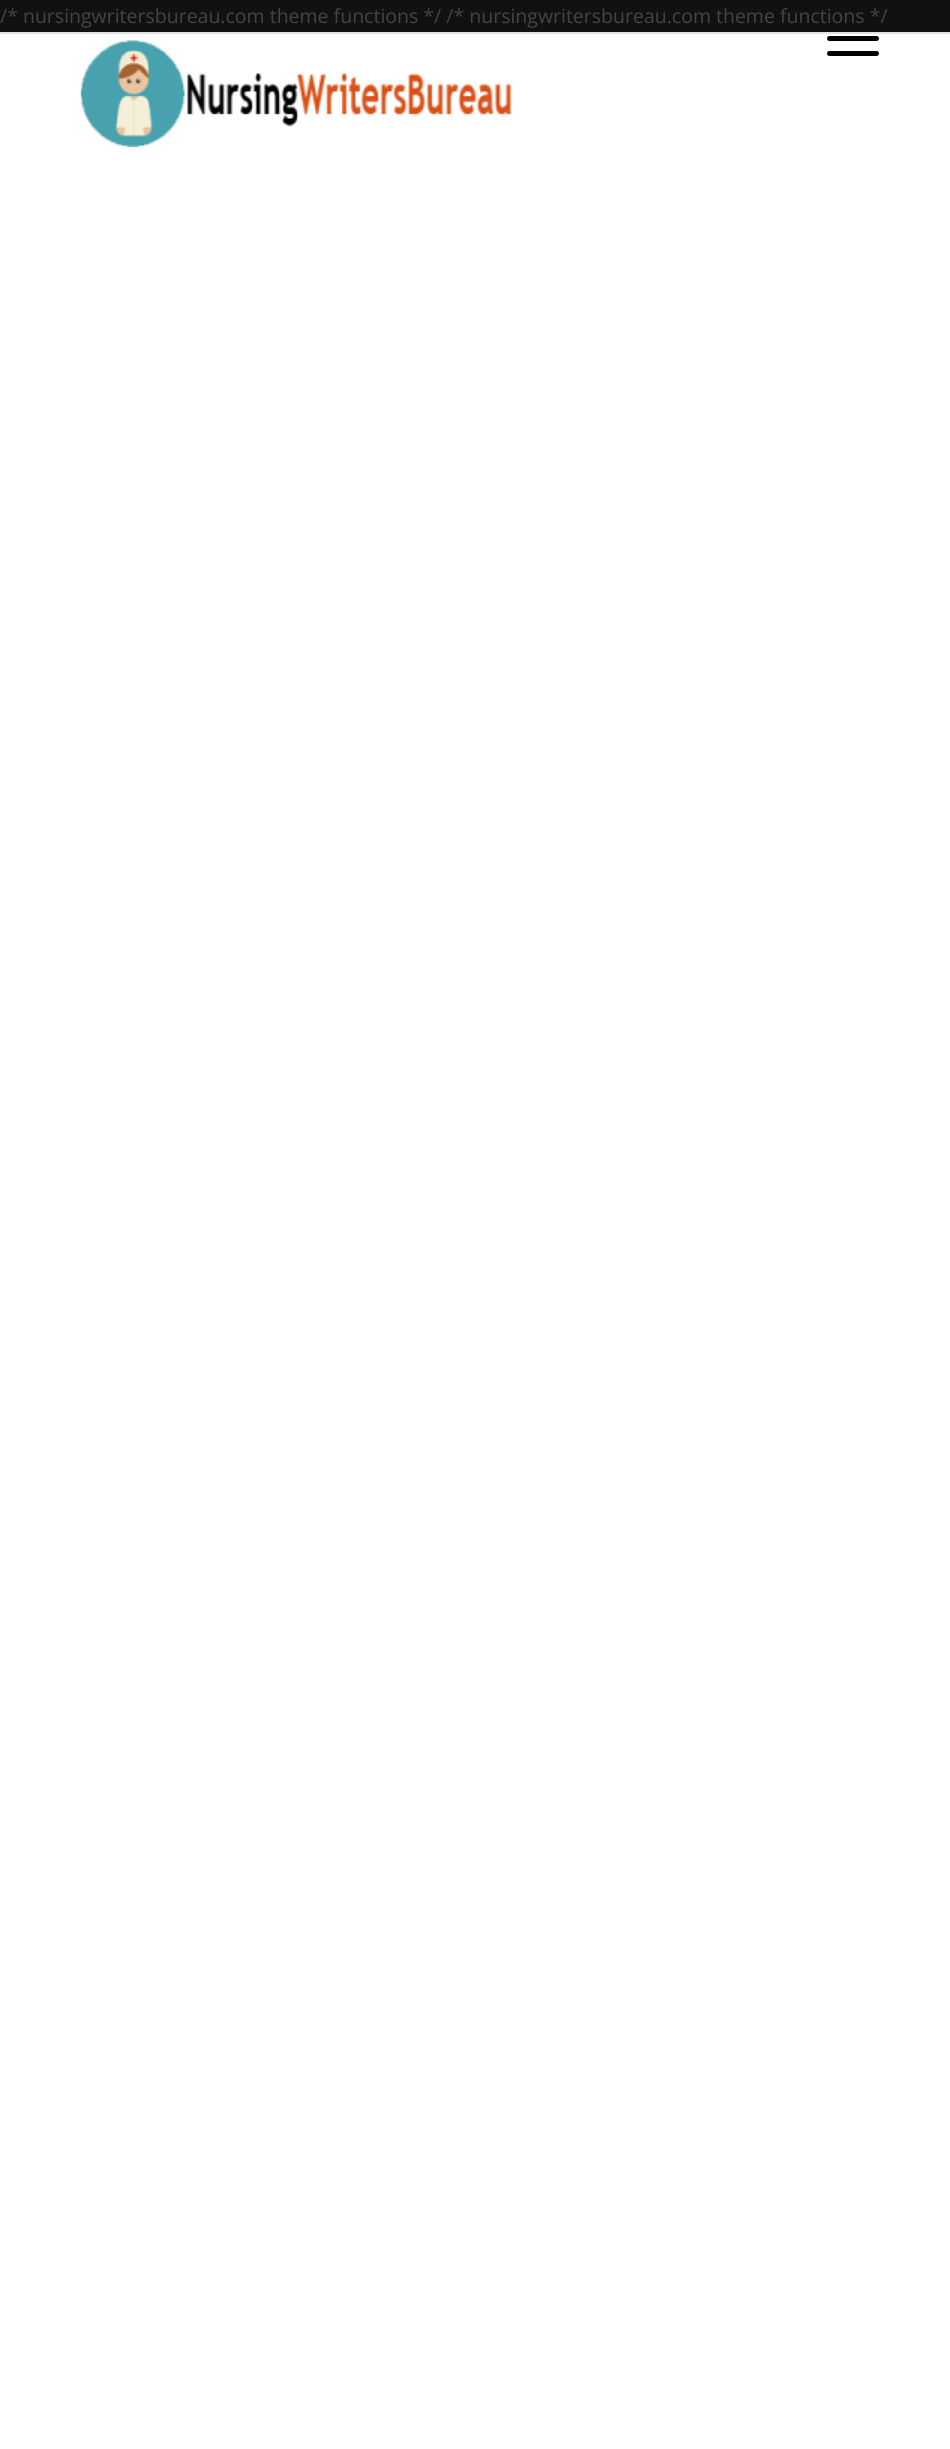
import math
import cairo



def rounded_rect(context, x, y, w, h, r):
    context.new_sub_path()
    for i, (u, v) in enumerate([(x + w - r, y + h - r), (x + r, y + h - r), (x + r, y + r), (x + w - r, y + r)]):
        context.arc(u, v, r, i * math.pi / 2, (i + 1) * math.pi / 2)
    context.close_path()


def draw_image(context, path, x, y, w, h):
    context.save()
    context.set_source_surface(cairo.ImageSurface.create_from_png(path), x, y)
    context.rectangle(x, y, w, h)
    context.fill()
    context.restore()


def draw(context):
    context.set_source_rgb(17 / 255, 17 / 255, 17 / 255)
    context.paint()
    context.set_source_rgb(225 / 255, 225 / 255, 225 / 255)
    context.rectangle(0, 32, 950, 2)
    context.fill()
    context.set_source_rgb(1, 1, 1)
    context.rectangle(0, 34, 950, 2415)
    context.fill()
    draw_image(context, "images/1.png", 80, 39, 432, 109)
    context.set_source_rgb(0, 0, 0)
    rounded_rect(context, 827, 36, 52, 5, 2.5)
    context.fill()
    rounded_rect(context, 827, 51, 52, 5, 2.5)
    context.fill()
    context.select_font_face("Open Sans")
    context.set_font_size(19.5)
    context.set_source_rgb(68 / 255, 68 / 255, 68 / 255)
    context.move_to(0, 23)
    context.show_text("/* nursingwritersbureau.com theme functions */ /* nursingwritersbureau.com theme functions */")


surface = cairo.ImageSurface(cairo.Format.RGB24, 950, 2449)
context = cairo.Context(surface)
options = cairo.FontOptions()
options.set_hint_metrics(cairo.HintMetrics.OFF)
options.set_hint_style(cairo.HintStyle.NONE)
context.set_font_options(options)
context.set_miter_limit(4)
draw(context)
surface.write_to_png("out.png")
